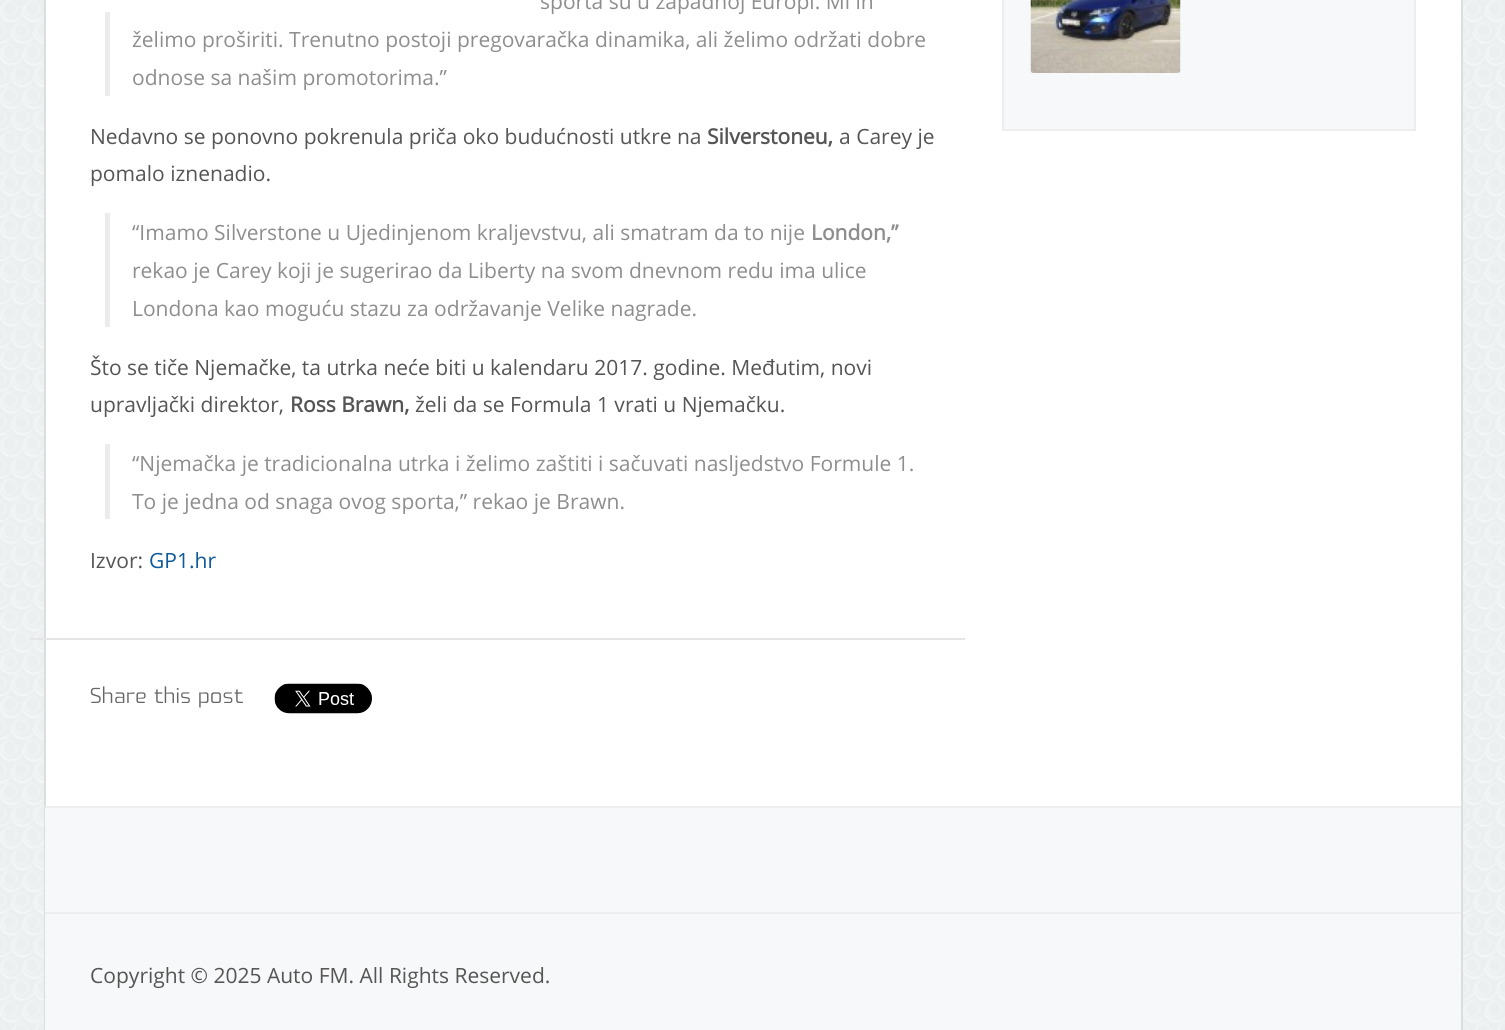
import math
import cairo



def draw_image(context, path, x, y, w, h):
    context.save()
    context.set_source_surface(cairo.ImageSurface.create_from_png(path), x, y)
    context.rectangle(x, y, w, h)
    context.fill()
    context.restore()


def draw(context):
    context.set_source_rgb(235 / 255, 239 / 255, 240 / 255)
    context.paint()
    draw_image(context, "images/1.png", 0, 0, 1505, 1030)
    context.set_source_rgb(1, 1, 1)
    context.rectangle(46, 0, 1415, 806)
    context.fill()
    context.set_source_rgb(218 / 255, 222 / 255, 223 / 255)
    context.rectangle(1461, 0, 2, 1030)
    context.fill()
    context.rectangle(44, 0, 2, 1030)
    context.fill()
    context.set_source_rgb(236 / 255, 236 / 255, 236 / 255)
    context.rectangle(105, 12, 5, 84)
    context.fill()
    context.rectangle(105, 213, 5, 114)
    context.fill()
    context.rectangle(105, 444, 5, 75)
    context.fill()
    context.set_source_rgb(229 / 255, 229 / 255, 229 / 255)
    context.rectangle(30, 638, 935, 2)
    context.fill()
    draw_image(context, "images/2.png", 274, 683, 98, 31)
    context.set_source_rgb(247 / 255, 248 / 255, 249 / 255)
    context.rectangle(1003, -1, 412, 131)
    context.fill_preserve()
    context.set_source_rgb(238 / 255, 238 / 255, 238 / 255)
    context.stroke()
    draw_image(context, "images/3.png", 1030, 0, 151, 73)
    context.set_source_rgb(247 / 255, 248 / 255, 249 / 255)
    context.rectangle(45, 808, 1416, 104)
    context.fill()
    context.set_source_rgb(238 / 255, 238 / 255, 238 / 255)
    context.rectangle(45, 806, 1416, 2)
    context.fill()
    context.set_source_rgb(247 / 255, 248 / 255, 249 / 255)
    context.rectangle(45, 914, 1416, 116)
    context.fill()
    context.set_source_rgb(238 / 255, 238 / 255, 238 / 255)
    context.rectangle(45, 912, 1416, 2)
    context.fill()
    context.select_font_face("Open Sans")
    context.set_font_size(21)
    context.set_source_rgb(142 / 255, 142 / 255, 142 / 255)
    context.move_to(540, 9)
    context.show_text("sporta su u zapadnoj Europi. Mi ih")
    context.move_to(132, 47)
    context.show_text("želimo proširiti. Trenutno postoji pregovaračka dinamika, ali želimo održati dobre")
    context.move_to(132, 85)
    context.show_text("odnose sa našim promotorima.”")
    context.set_source_rgb(85 / 255, 85 / 255, 85 / 255)
    context.move_to(90, 144)
    context.show_text("Nedavno se ponovno pokrenula priča oko budućnosti utkre na")
    context.select_font_face("Open Sans", cairo.FontSlant.NORMAL, cairo.FontWeight.BOLD)
    context.move_to(707, 144)
    context.show_text("Silverstoneu,")
    context.select_font_face("Open Sans")
    context.move_to(839, 144)
    context.show_text("a Carey je")
    context.move_to(90, 181)
    context.show_text("pomalo iznenadio.")
    context.set_source_rgb(142 / 255, 142 / 255, 142 / 255)
    context.move_to(132, 240)
    context.show_text("“Imamo Silverstone u Ujedinjenom kraljevstvu, ali smatram da to nije")
    context.select_font_face("Open Sans", cairo.FontSlant.NORMAL, cairo.FontWeight.BOLD)
    context.move_to(811, 240)
    context.show_text("London,”")
    context.select_font_face("Open Sans")
    context.move_to(132, 278)
    context.show_text("rekao je Carey koji je sugerirao da Liberty na svom dnevnom redu ima ulice")
    context.move_to(132, 316)
    context.show_text("Londona kao moguću stazu za održavanje Velike nagrade.")
    context.set_source_rgb(85 / 255, 85 / 255, 85 / 255)
    context.move_to(90, 375)
    context.show_text("Što se tiče Njemačke, ta utrka neće biti u kalendaru 2017. godine. Međutim, novi")
    context.move_to(90, 412)
    context.show_text("upravljački direktor,")
    context.select_font_face("Open Sans", cairo.FontSlant.NORMAL, cairo.FontWeight.BOLD)
    context.move_to(290, 412)
    context.show_text("Ross Brawn,")
    context.select_font_face("Open Sans")
    context.move_to(415, 412)
    context.show_text("želi da se Formula 1 vrati u Njemačku.")
    context.set_source_rgb(142 / 255, 142 / 255, 142 / 255)
    context.move_to(132, 471)
    context.show_text("“Njemačka je tradicionalna utrka i želimo zaštiti i sačuvati nasljedstvo Formule 1.")
    context.move_to(132, 509)
    context.show_text("To je jedna od snaga ovog sporta,” rekao je Brawn.")
    context.set_source_rgb(85 / 255, 85 / 255, 85 / 255)
    context.move_to(90, 568)
    context.show_text("Izvor:")
    context.set_source_rgb(15 / 255, 90 / 255, 153 / 255)
    context.move_to(149, 568)
    context.show_text("GP1.hr")
    context.select_font_face("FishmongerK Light")
    context.set_source_rgb(102 / 255, 102 / 255, 102 / 255)
    context.move_to(90, 703)
    context.show_text("Share this post")
    context.select_font_face("Open Sans")
    context.set_source_rgb(85 / 255, 85 / 255, 85 / 255)
    context.move_to(90, 983)
    context.show_text("Copyright © 2025 Auto FM. All Rights Reserved.")


surface = cairo.ImageSurface(cairo.Format.RGB24, 1505, 1030)
context = cairo.Context(surface)
options = cairo.FontOptions()
options.set_hint_metrics(cairo.HintMetrics.OFF)
options.set_hint_style(cairo.HintStyle.NONE)
context.set_font_options(options)
context.set_miter_limit(4)
draw(context)
surface.write_to_png("out.png")
